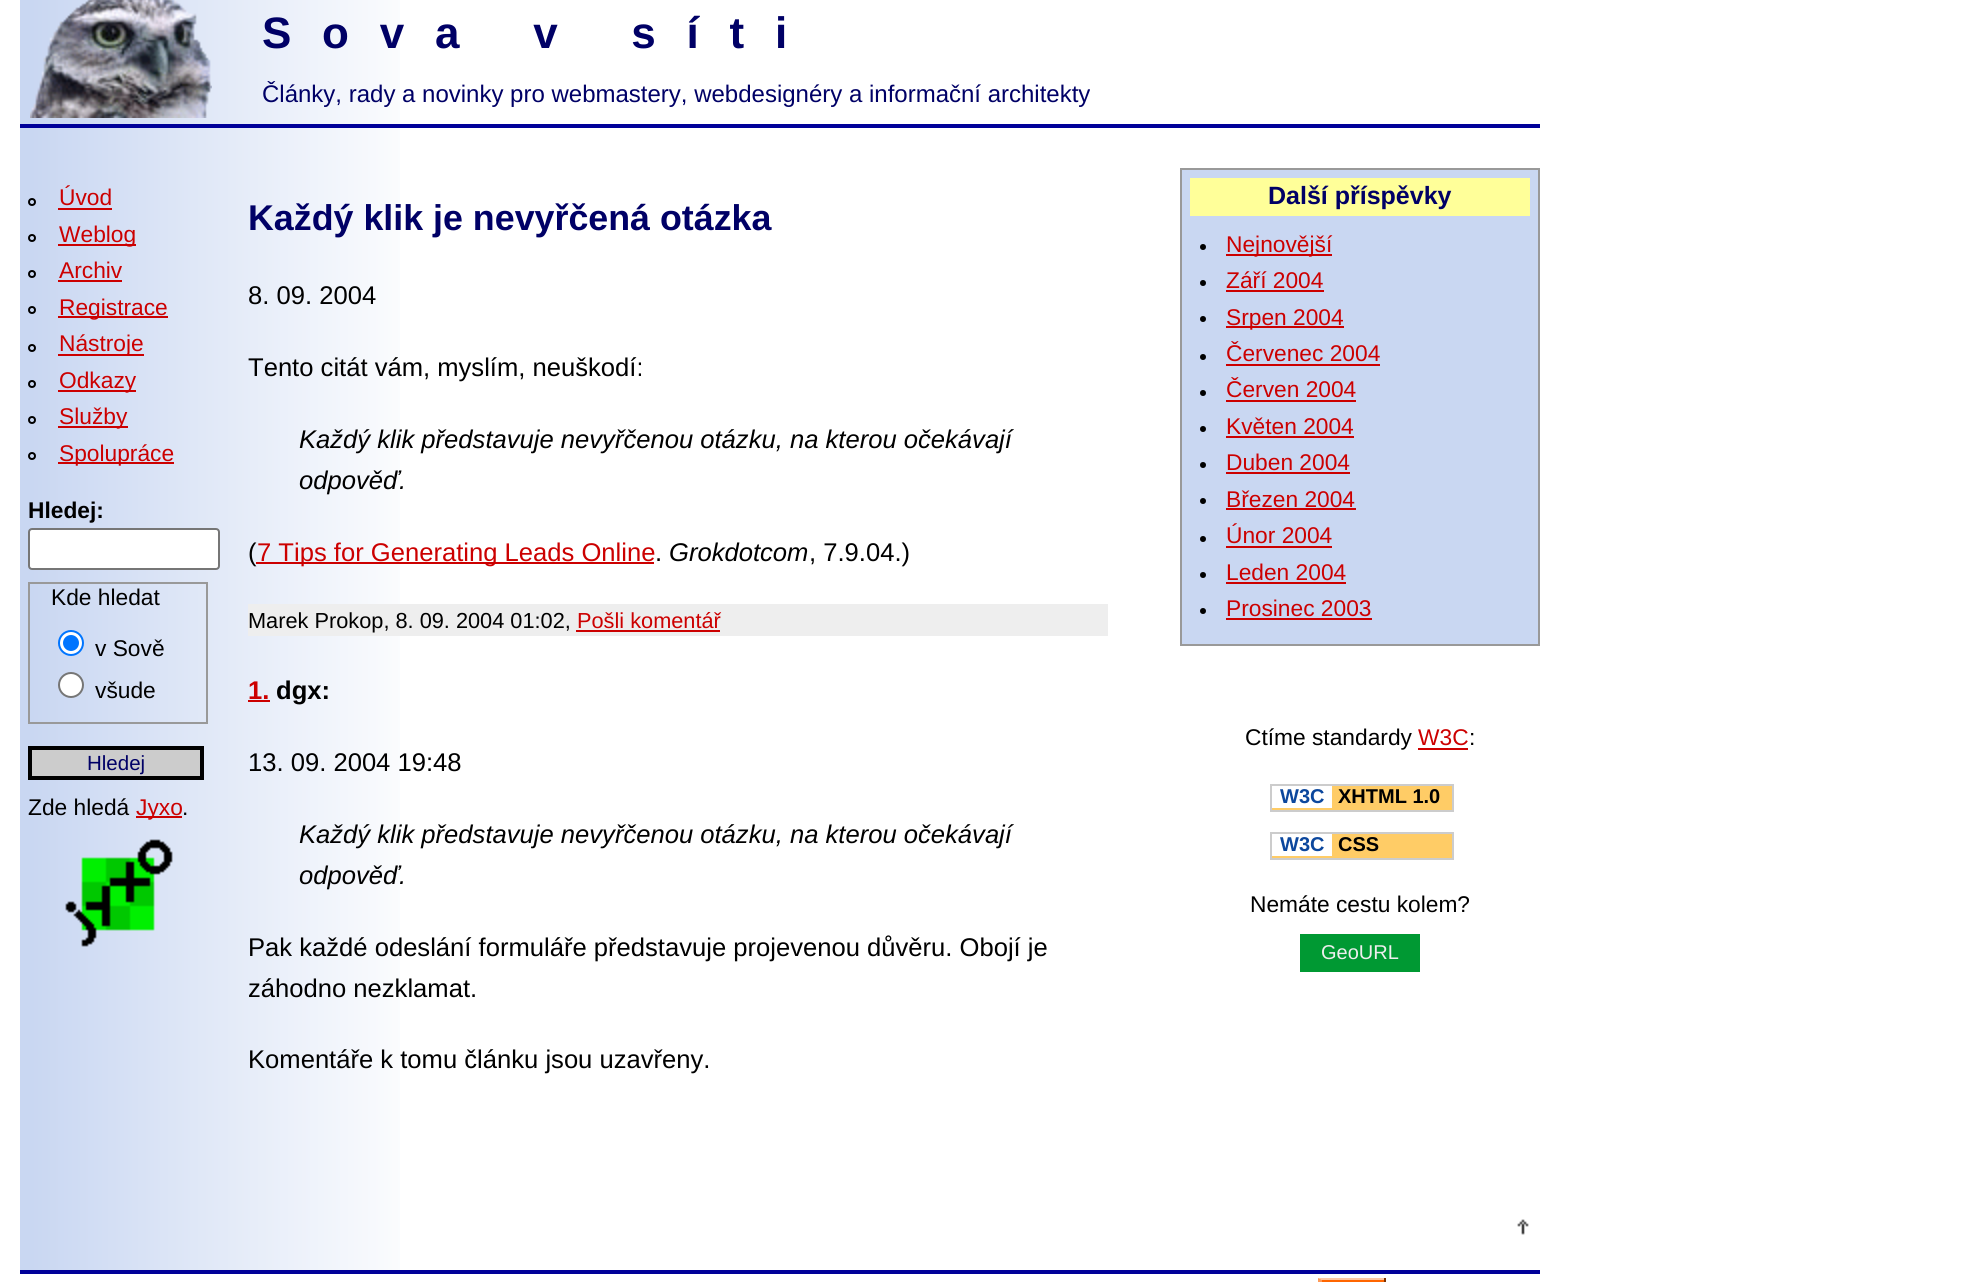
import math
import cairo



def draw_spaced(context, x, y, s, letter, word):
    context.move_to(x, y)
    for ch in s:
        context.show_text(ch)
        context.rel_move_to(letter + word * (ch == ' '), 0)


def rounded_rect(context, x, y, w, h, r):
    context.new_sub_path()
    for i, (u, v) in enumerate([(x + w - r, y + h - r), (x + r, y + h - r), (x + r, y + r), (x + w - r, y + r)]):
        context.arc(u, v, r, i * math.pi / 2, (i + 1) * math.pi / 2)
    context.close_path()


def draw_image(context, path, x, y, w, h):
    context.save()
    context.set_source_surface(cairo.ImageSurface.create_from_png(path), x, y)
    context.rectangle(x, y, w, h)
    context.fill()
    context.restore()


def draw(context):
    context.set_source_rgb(1, 1, 1)
    context.paint()
    draw_image(context, "images/1.png", 20, 0, 380, 1270)
    draw_image(context, "images/2.png", 30, 0, 182, 118)
    context.set_source_rgb(0, 0, 153 / 255)
    context.rectangle(20, 124, 1520, 4)
    context.fill()
    context.arc(32, 202, 3, 0, 2 * math.pi)
    context.set_source_rgb(0, 0, 0)
    context.stroke()
    context.set_source_rgb(204 / 255, 0, 0)
    context.rectangle(58, 208, 54, 2)
    context.fill()
    context.arc(32, 238, 3, 0, 2 * math.pi)
    context.set_source_rgb(0, 0, 0)
    context.stroke()
    context.set_source_rgb(204 / 255, 0, 0)
    context.rectangle(58, 244, 78, 2)
    context.fill()
    context.arc(32, 274, 3, 0, 2 * math.pi)
    context.set_source_rgb(0, 0, 0)
    context.stroke()
    context.set_source_rgb(204 / 255, 0, 0)
    context.rectangle(58, 280, 64, 2)
    context.fill()
    context.arc(32, 310, 3, 0, 2 * math.pi)
    context.set_source_rgb(0, 0, 0)
    context.stroke()
    context.set_source_rgb(204 / 255, 0, 0)
    context.rectangle(58, 316, 110, 2)
    context.fill()
    context.arc(32, 348, 3, 0, 2 * math.pi)
    context.set_source_rgb(0, 0, 0)
    context.stroke()
    context.set_source_rgb(204 / 255, 0, 0)
    context.rectangle(58, 354, 86, 2)
    context.fill()
    context.arc(32, 384, 3, 0, 2 * math.pi)
    context.set_source_rgb(0, 0, 0)
    context.stroke()
    context.set_source_rgb(204 / 255, 0, 0)
    context.rectangle(58, 390, 78, 2)
    context.fill()
    context.arc(32, 420, 3, 0, 2 * math.pi)
    context.set_source_rgb(0, 0, 0)
    context.stroke()
    context.set_source_rgb(204 / 255, 0, 0)
    context.rectangle(58, 426, 70, 2)
    context.fill()
    context.arc(32, 456, 3, 0, 2 * math.pi)
    context.set_source_rgb(0, 0, 0)
    context.stroke()
    context.set_source_rgb(204 / 255, 0, 0)
    context.rectangle(58, 462, 116, 2)
    context.fill()
    context.set_source_rgb(1, 1, 1)
    rounded_rect(context, 29, 529, 190, 40, 3)
    context.fill_preserve()
    context.set_source_rgb(118 / 255, 118 / 255, 118 / 255)
    context.stroke()
    context.rectangle(29, 583, 178, 140)
    context.set_source_rgb(153 / 255, 153 / 255, 153 / 255)
    context.stroke()
    context.set_source_rgb(1, 1, 1)
    context.arc(71, 643, 12, 0, 2 * math.pi)
    context.fill_preserve()
    context.set_source_rgb(0, 117 / 255, 1)
    context.stroke()
    context.arc(71, 643, 8, 0, 2 * math.pi)
    context.fill()
    context.set_source_rgb(1, 1, 1)
    context.arc(71, 685, 12, 0, 2 * math.pi)
    context.fill_preserve()
    context.set_source_rgb(118 / 255, 118 / 255, 118 / 255)
    context.stroke()
    context.set_source_rgb(204 / 255, 204 / 255, 204 / 255)
    context.rectangle(30, 748, 172, 30)
    context.fill_preserve()
    context.set_source_rgb(0, 0, 0)
    context.set_line_width(4)
    context.stroke()
    context.set_source_rgb(204 / 255, 0, 0)
    context.rectangle(136, 816, 46, 2)
    context.fill()
    draw_image(context, "images/3.png", 65, 839, 108, 108)
    context.set_source_rgb(238 / 255, 238 / 255, 238 / 255)
    context.rectangle(248, 604, 860, 32)
    context.fill()
    context.set_source_rgb(204 / 255, 0, 0)
    context.rectangle(576, 630, 144, 2)
    context.fill()
    context.rectangle(248, 700, 22, 2)
    context.fill()
    context.set_source_rgb(201 / 255, 215 / 255, 242 / 255)
    context.rectangle(1181, 169, 358, 476)
    context.fill_preserve()
    context.set_source_rgb(153 / 255, 153 / 255, 153 / 255)
    context.set_line_width(2)
    context.stroke()
    context.set_source_rgb(1, 1, 153 / 255)
    context.rectangle(1190, 178, 340, 38)
    context.fill()
    context.set_source_rgb(0, 0, 0)
    context.arc(1203, 247, 3, 0, 2 * math.pi)
    context.fill()
    context.set_source_rgb(204 / 255, 0, 0)
    context.rectangle(1226, 254, 106, 2)
    context.fill()
    context.set_source_rgb(0, 0, 0)
    context.arc(1203, 283, 3, 0, 2 * math.pi)
    context.fill()
    context.set_source_rgb(204 / 255, 0, 0)
    context.rectangle(1226, 290, 98, 2)
    context.fill()
    context.set_source_rgb(0, 0, 0)
    context.arc(1203, 319, 3, 0, 2 * math.pi)
    context.fill()
    context.set_source_rgb(204 / 255, 0, 0)
    context.rectangle(1226, 326, 118, 2)
    context.fill()
    context.set_source_rgb(0, 0, 0)
    context.arc(1203, 357, 3, 0, 2 * math.pi)
    context.fill()
    context.set_source_rgb(204 / 255, 0, 0)
    context.rectangle(1226, 364, 154, 2)
    context.fill()
    context.set_source_rgb(0, 0, 0)
    context.arc(1203, 393, 3, 0, 2 * math.pi)
    context.fill()
    context.set_source_rgb(204 / 255, 0, 0)
    context.rectangle(1226, 400, 130, 2)
    context.fill()
    context.set_source_rgb(0, 0, 0)
    context.arc(1203, 429, 3, 0, 2 * math.pi)
    context.fill()
    context.set_source_rgb(204 / 255, 0, 0)
    context.rectangle(1226, 436, 128, 2)
    context.fill()
    context.set_source_rgb(0, 0, 0)
    context.arc(1203, 465, 3, 0, 2 * math.pi)
    context.fill()
    context.set_source_rgb(204 / 255, 0, 0)
    context.rectangle(1226, 472, 124, 2)
    context.fill()
    context.set_source_rgb(0, 0, 0)
    context.arc(1203, 501, 3, 0, 2 * math.pi)
    context.fill()
    context.set_source_rgb(204 / 255, 0, 0)
    context.rectangle(1226, 508, 130, 2)
    context.fill()
    context.set_source_rgb(0, 0, 0)
    context.arc(1203, 539, 3, 0, 2 * math.pi)
    context.fill()
    context.set_source_rgb(204 / 255, 0, 0)
    context.rectangle(1226, 546, 106, 2)
    context.fill()
    context.set_source_rgb(0, 0, 0)
    context.arc(1203, 575, 3, 0, 2 * math.pi)
    context.fill()
    context.set_source_rgb(204 / 255, 0, 0)
    context.rectangle(1226, 582, 120, 2)
    context.fill()
    context.set_source_rgb(0, 0, 0)
    context.arc(1203, 611, 3, 0, 2 * math.pi)
    context.fill()
    context.set_source_rgb(204 / 255, 0, 0)
    context.rectangle(1226, 618, 146, 2)
    context.fill()
    context.rectangle(1418, 748, 50, 2)
    context.fill()
    context.set_source_rgb(1, 204 / 255, 102 / 255)
    context.rectangle(1271, 785, 182, 26)
    context.fill_preserve()
    context.set_source_rgb(204 / 255, 204 / 255, 204 / 255)
    context.stroke()
    context.set_source_rgb(1, 1, 1)
    context.rectangle(1272, 786, 60, 22)
    context.fill()
    context.set_source_rgb(1, 204 / 255, 102 / 255)
    context.rectangle(1271, 833, 182, 26)
    context.fill_preserve()
    context.set_source_rgb(204 / 255, 204 / 255, 204 / 255)
    context.stroke()
    context.set_source_rgb(1, 1, 1)
    context.rectangle(1272, 834, 60, 22)
    context.fill()
    context.set_source_rgb(0, 153 / 255, 51 / 255)
    context.rectangle(1300, 934, 120, 38)
    context.fill()
    draw_image(context, "images/4.png", 1517, 1219, 12, 16)
    context.set_source_rgb(0, 0, 153 / 255)
    context.rectangle(20, 1270, 1520, 4)
    context.fill()
    context.set_source_rgb(1, 200 / 255, 164 / 255)
    context.new_path()
    context.move_to(1318, 1278)
    context.line_to(1386, 1278)
    context.line_to(1384, 1280)
    context.line_to(1322, 1280)
    context.close_path()
    context.fill()
    context.set_source_rgb(1, 154 / 255, 87 / 255)
    context.new_path()
    context.move_to(1318, 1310)
    context.line_to(1318, 1278)
    context.line_to(1322, 1280)
    context.line_to(1322, 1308)
    context.close_path()
    context.fill()
    context.set_source_rgb(1, 102 / 255, 0)
    context.rectangle(1322, 1280, 62, 2)
    context.fill()
    context.set_source_rgb(125 / 255, 51 / 255, 2 / 255)
    context.rectangle(1384, 1278, 2, 4)
    context.fill()
    context.select_font_face("Liberation Sans", cairo.FontSlant.NORMAL, cairo.FontWeight.BOLD)
    context.set_font_size(44)
    context.set_source_rgb(0, 0, 102 / 255)
    draw_spaced(context, 262, 48, "Sova v síti", 30.75, 0)
    context.select_font_face("Liberation Sans")
    context.set_font_size(24)
    context.move_to(262, 102)
    context.show_text("Články, rady a novinky pro webmastery, webdesignéry a informační architekty")
    context.set_font_size(22.75)
    context.set_source_rgb(204 / 255, 0, 0)
    context.move_to(59, 205)
    context.show_text("Úvod")
    context.move_to(59, 242)
    context.show_text("Weblog")
    context.move_to(59, 278)
    context.show_text("Archiv")
    context.move_to(59, 315)
    context.show_text("Registrace")
    context.move_to(59, 351)
    context.show_text("Nástroje")
    context.move_to(59, 388)
    context.show_text("Odkazy")
    context.move_to(59, 424)
    context.show_text("Služby")
    context.move_to(59, 461)
    context.show_text("Spolupráce")
    context.select_font_face("Liberation Sans", cairo.FontSlant.NORMAL, cairo.FontWeight.BOLD)
    context.set_source_rgb(0, 0, 0)
    context.move_to(28, 518)
    context.show_text("Hledej:")
    context.select_font_face("Liberation Sans")
    context.move_to(51, 605)
    context.show_text("Kde hledat")
    context.move_to(95, 656)
    context.show_text("v Sově")
    context.move_to(95, 698)
    context.show_text("všude")
    context.set_font_size(20.5)
    context.set_source_rgb(0, 0, 102 / 255)
    context.move_to(87, 770)
    context.show_text("Hledej")
    context.set_font_size(22.75)
    context.set_source_rgb(0, 0, 0)
    context.move_to(28, 815)
    context.show_text("Zde hledá")
    context.set_source_rgb(204 / 255, 0, 0)
    context.move_to(136, 815)
    context.show_text("Jyxo")
    context.set_source_rgb(0, 0, 0)
    context.move_to(182, 815)
    context.show_text(".")
    context.select_font_face("Liberation Sans", cairo.FontSlant.NORMAL, cairo.FontWeight.BOLD)
    context.set_font_size(35.8)
    context.set_source_rgb(0, 0, 102 / 255)
    context.move_to(248, 230)
    context.show_text("Každý klik je nevyřčená otázka")
    context.select_font_face("Liberation Sans")
    context.set_font_size(25.6)
    context.set_source_rgb(0, 0, 0)
    context.move_to(248, 304)
    context.show_text("8. 09. 2004")
    context.move_to(248, 376)
    context.show_text("Tento citát vám, myslím, neuškodí:")
    context.select_font_face("Liberation Sans", cairo.FontSlant.ITALIC)
    context.move_to(299, 448)
    context.show_text("Každý klik představuje nevyřčenou otázku, na kterou očekávají")
    context.move_to(299, 489)
    context.show_text("odpověď.")
    context.select_font_face("Liberation Sans")
    context.move_to(248, 561)
    context.show_text("(")
    context.set_source_rgb(204 / 255, 0, 0)
    context.rectangle(256, 562, 398, 2)
    context.fill()
    context.move_to(257, 561)
    context.show_text("7 Tips for Generating Leads Online")
    context.set_source_rgb(0, 0, 0)
    context.move_to(655, 561)
    context.show_text(".")
    context.select_font_face("Liberation Sans", cairo.FontSlant.ITALIC)
    context.move_to(669, 561)
    context.show_text("Grokdotcom")
    context.select_font_face("Liberation Sans")
    context.move_to(809, 561)
    context.show_text(", 7.9.04.)")
    context.set_font_size(21.75)
    context.move_to(248, 628)
    context.show_text("Marek Prokop, 8. 09. 2004 01:02,")
    context.set_source_rgb(204 / 255, 0, 0)
    context.move_to(577, 628)
    context.show_text("Pošli komentář")
    context.select_font_face("Liberation Sans", cairo.FontSlant.NORMAL, cairo.FontWeight.BOLD)
    context.set_font_size(25.6)
    context.move_to(248, 699)
    context.show_text("1.")
    context.set_source_rgb(0, 0, 0)
    context.move_to(276, 699)
    context.show_text("dgx:")
    context.select_font_face("Liberation Sans")
    context.move_to(248, 771)
    context.show_text("13. 09. 2004 19:48")
    context.select_font_face("Liberation Sans", cairo.FontSlant.ITALIC)
    context.move_to(299, 843)
    context.show_text("Každý klik představuje nevyřčenou otázku, na kterou očekávají")
    context.move_to(299, 884)
    context.show_text("odpověď.")
    context.select_font_face("Liberation Sans")
    context.move_to(248, 956)
    context.show_text("Pak každé odeslání formuláře představuje projevenou důvěru. Obojí je")
    context.move_to(248, 997)
    context.show_text("záhodno nezklamat.")
    context.move_to(248, 1068)
    context.show_text("Komentáře k tomu článku jsou uzavřeny.")
    context.select_font_face("Liberation Sans", cairo.FontSlant.NORMAL, cairo.FontWeight.BOLD)
    context.set_font_size(25)
    context.set_source_rgb(0, 0, 102 / 255)
    context.move_to(1268, 204)
    context.show_text("Další příspěvky")
    context.select_font_face("Liberation Sans")
    context.set_font_size(22.75)
    context.set_source_rgb(204 / 255, 0, 0)
    context.move_to(1226, 252)
    context.show_text("Nejnovější")
    context.move_to(1226, 288)
    context.show_text("Září 2004")
    context.move_to(1226, 325)
    context.show_text("Srpen 2004")
    context.move_to(1226, 361)
    context.show_text("Červenec 2004")
    context.move_to(1226, 397)
    context.show_text("Červen 2004")
    context.move_to(1226, 434)
    context.show_text("Květen 2004")
    context.move_to(1226, 470)
    context.show_text("Duben 2004")
    context.move_to(1226, 507)
    context.show_text("Březen 2004")
    context.move_to(1226, 543)
    context.show_text("Únor 2004")
    context.move_to(1226, 580)
    context.show_text("Leden 2004")
    context.move_to(1226, 616)
    context.show_text("Prosinec 2003")
    context.set_source_rgb(0, 0, 0)
    context.move_to(1245, 745)
    context.show_text("Ctíme standardy")
    context.set_source_rgb(204 / 255, 0, 0)
    context.move_to(1418, 745)
    context.show_text("W3C")
    context.set_source_rgb(0, 0, 0)
    context.move_to(1469, 745)
    context.show_text(":")
    context.select_font_face("Liberation Sans", cairo.FontSlant.NORMAL, cairo.FontWeight.BOLD)
    context.set_font_size(20)
    context.set_source_rgb(12 / 255, 71 / 255, 157 / 255)
    context.move_to(1280, 803)
    context.show_text("W3C")
    context.set_source_rgb(0, 0, 0)
    context.move_to(1338, 803)
    context.show_text("XHTML 1.0")
    context.set_source_rgb(12 / 255, 71 / 255, 157 / 255)
    context.move_to(1280, 851)
    context.show_text("W3C")
    context.set_source_rgb(0, 0, 0)
    context.move_to(1338, 851)
    context.show_text("CSS")
    context.select_font_face("Liberation Sans")
    context.set_font_size(22.75)
    context.move_to(1250, 912)
    context.show_text("Nemáte cestu kolem?")
    context.set_font_size(20)
    context.set_source_rgb(238 / 255, 238 / 255, 238 / 255)
    context.move_to(1321, 959)
    context.show_text("GeoURL")


surface = cairo.ImageSurface(cairo.Format.RGB24, 1961, 1282)
context = cairo.Context(surface)
options = cairo.FontOptions()
options.set_hint_metrics(cairo.HintMetrics.OFF)
options.set_hint_style(cairo.HintStyle.NONE)
context.set_font_options(options)
context.set_miter_limit(4)
draw(context)
surface.write_to_png("out.png")
